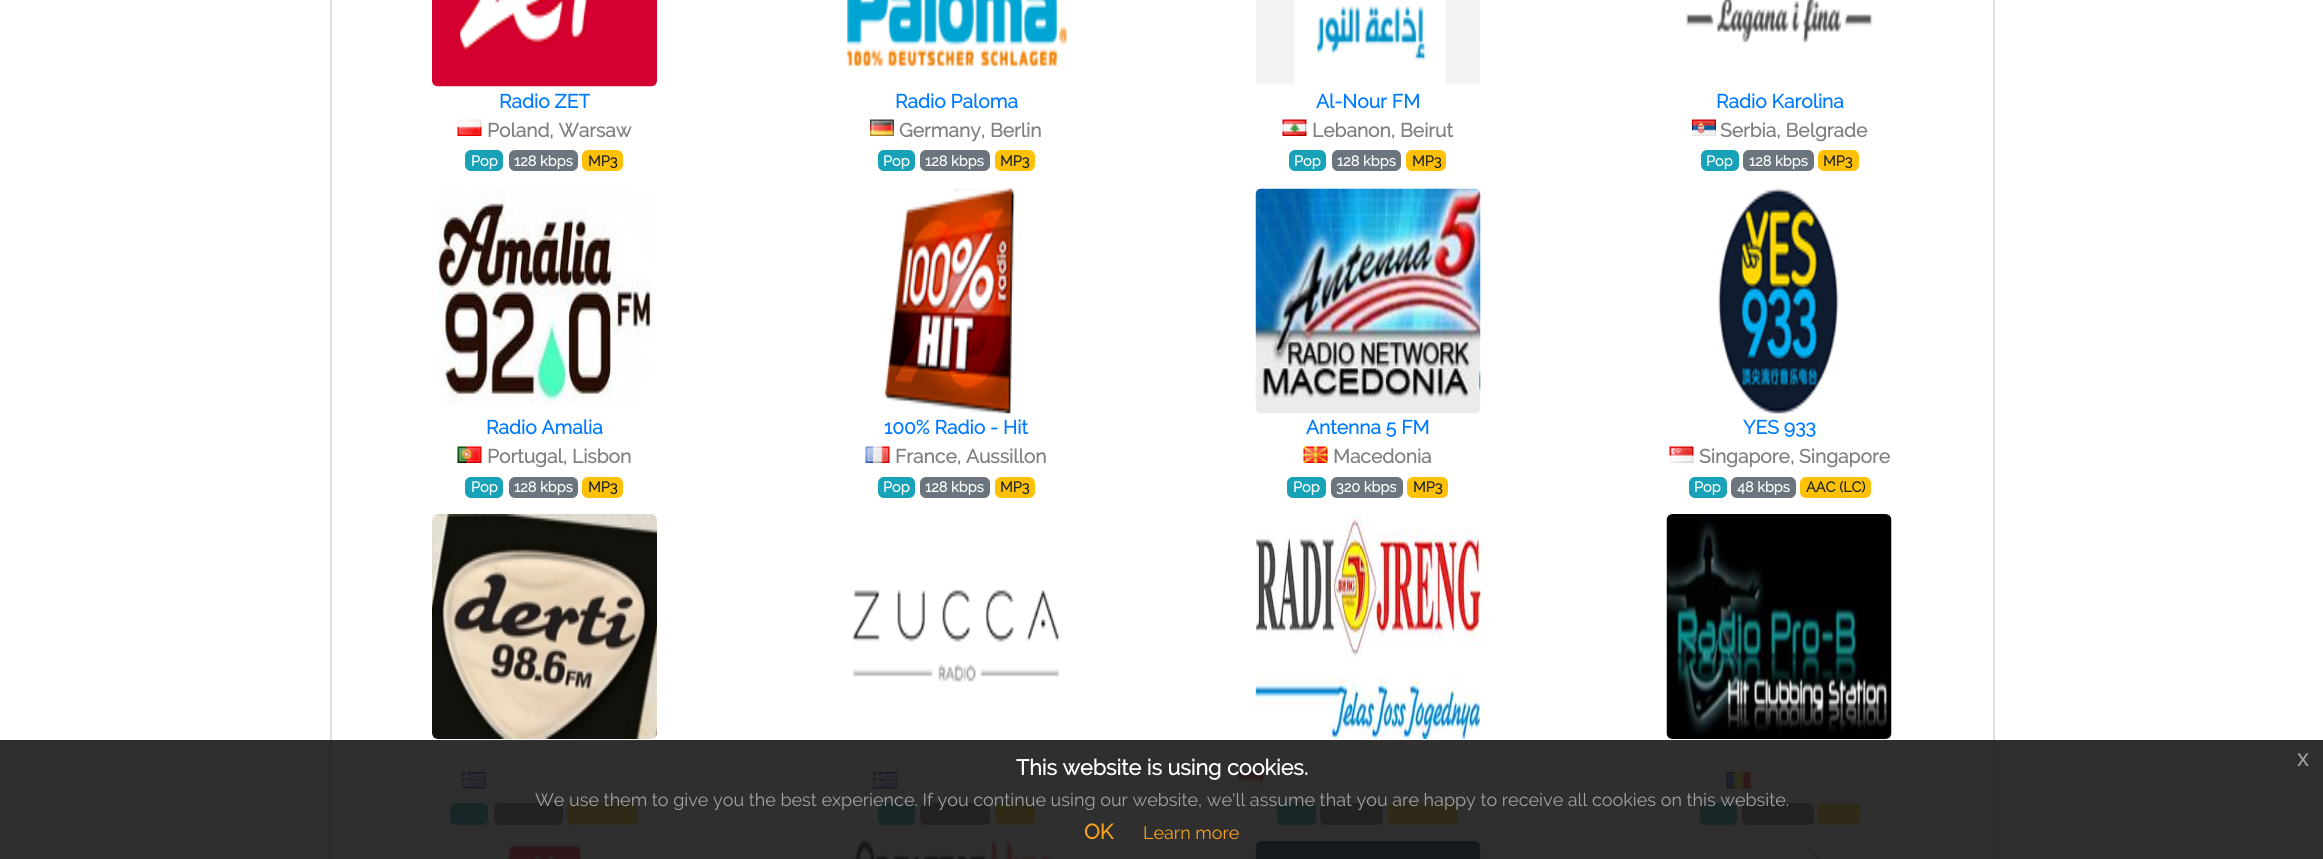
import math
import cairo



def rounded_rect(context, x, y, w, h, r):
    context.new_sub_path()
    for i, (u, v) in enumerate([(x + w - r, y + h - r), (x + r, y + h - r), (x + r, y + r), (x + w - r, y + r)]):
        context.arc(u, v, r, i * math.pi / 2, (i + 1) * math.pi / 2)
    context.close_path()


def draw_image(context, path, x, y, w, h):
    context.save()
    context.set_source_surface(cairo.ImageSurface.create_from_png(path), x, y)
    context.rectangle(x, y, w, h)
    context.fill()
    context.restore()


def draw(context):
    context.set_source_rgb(1, 1, 1)
    context.paint()
    context.rectangle(331, -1, 1663, 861)
    context.set_source_rgb(223 / 255, 223 / 255, 223 / 255)
    context.stroke()
    draw_image(context, "images/1.png", 432, 0, 225, 87)
    draw_image(context, "images/2.png", 457, 119, 25, 17)
    context.set_source_rgb(23 / 255, 162 / 255, 184 / 255)
    rounded_rect(context, 465, 150, 38, 21, 6)
    context.fill()
    context.set_source_rgb(108 / 255, 117 / 255, 125 / 255)
    rounded_rect(context, 509, 150, 69, 21, 6)
    context.fill()
    context.set_source_rgb(1, 193 / 255, 7 / 255)
    rounded_rect(context, 582, 150, 41, 21, 6)
    context.fill()
    draw_image(context, "images/3.png", 847, 0, 220, 67)
    draw_image(context, "images/4.png", 870, 119, 24, 17)
    context.set_source_rgb(23 / 255, 162 / 255, 184 / 255)
    rounded_rect(context, 878, 150, 37, 21, 6)
    context.fill()
    context.set_source_rgb(108 / 255, 117 / 255, 125 / 255)
    rounded_rect(context, 920, 150, 70, 21, 6)
    context.fill()
    context.set_source_rgb(1, 193 / 255, 7 / 255)
    rounded_rect(context, 995, 150, 40, 21, 6)
    context.fill()
    draw_image(context, "images/5.png", 1256, 0, 224, 85)
    draw_image(context, "images/6.png", 1282, 119, 25, 17)
    context.set_source_rgb(23 / 255, 162 / 255, 184 / 255)
    rounded_rect(context, 1289, 150, 37, 21, 6)
    context.fill()
    context.set_source_rgb(108 / 255, 117 / 255, 125 / 255)
    rounded_rect(context, 1332, 150, 69, 21, 6)
    context.fill()
    context.set_source_rgb(1, 193 / 255, 7 / 255)
    rounded_rect(context, 1406, 150, 40, 21, 6)
    context.fill()
    draw_image(context, "images/7.png", 1686, 0, 187, 43)
    draw_image(context, "images/8.png", 1692, 119, 24, 17)
    context.set_source_rgb(23 / 255, 162 / 255, 184 / 255)
    rounded_rect(context, 1701, 150, 38, 21, 6)
    context.fill()
    context.set_source_rgb(108 / 255, 117 / 255, 125 / 255)
    rounded_rect(context, 1743, 150, 71, 21, 6)
    context.fill()
    context.set_source_rgb(1, 193 / 255, 7 / 255)
    rounded_rect(context, 1818, 150, 41, 21, 6)
    context.fill()
    draw_image(context, "images/9.png", 432, 189, 221, 217)
    draw_image(context, "images/10.png", 457, 446, 25, 17)
    context.set_source_rgb(23 / 255, 162 / 255, 184 / 255)
    rounded_rect(context, 465, 477, 38, 21, 6)
    context.fill()
    context.set_source_rgb(108 / 255, 117 / 255, 125 / 255)
    rounded_rect(context, 509, 477, 69, 21, 6)
    context.fill()
    context.set_source_rgb(1, 193 / 255, 7 / 255)
    rounded_rect(context, 582, 477, 41, 21, 6)
    context.fill()
    draw_image(context, "images/11.png", 885, 188, 131, 226)
    draw_image(context, "images/12.png", 865, 446, 25, 17)
    context.set_source_rgb(23 / 255, 162 / 255, 184 / 255)
    rounded_rect(context, 878, 477, 37, 21, 6)
    context.fill()
    context.set_source_rgb(108 / 255, 117 / 255, 125 / 255)
    rounded_rect(context, 920, 477, 70, 21, 6)
    context.fill()
    context.set_source_rgb(1, 193 / 255, 7 / 255)
    rounded_rect(context, 995, 477, 40, 21, 6)
    context.fill()
    draw_image(context, "images/13.png", 1255, 188, 226, 226)
    draw_image(context, "images/14.png", 1303, 446, 25, 17)
    context.set_source_rgb(23 / 255, 162 / 255, 184 / 255)
    rounded_rect(context, 1287, 477, 39, 21, 6)
    context.fill()
    context.set_source_rgb(108 / 255, 117 / 255, 125 / 255)
    rounded_rect(context, 1331, 477, 72, 21, 6)
    context.fill()
    context.set_source_rgb(1, 193 / 255, 7 / 255)
    rounded_rect(context, 1407, 477, 41, 21, 6)
    context.fill()
    draw_image(context, "images/15.png", 1718, 188, 121, 226)
    draw_image(context, "images/16.png", 1669, 446, 25, 17)
    context.set_source_rgb(23 / 255, 162 / 255, 184 / 255)
    rounded_rect(context, 1689, 477, 38, 21, 6)
    context.fill()
    context.set_source_rgb(108 / 255, 117 / 255, 125 / 255)
    rounded_rect(context, 1731, 477, 65, 21, 6)
    context.fill()
    context.set_source_rgb(1, 193 / 255, 7 / 255)
    rounded_rect(context, 1800, 477, 71, 21, 6)
    context.fill()
    draw_image(context, "images/17.png", 432, 514, 225, 225)
    draw_image(context, "images/18.png", 462, 772, 24, 17)
    context.set_source_rgb(23 / 255, 162 / 255, 184 / 255)
    rounded_rect(context, 450, 803, 38, 22, 6)
    context.fill()
    context.set_source_rgb(108 / 255, 117 / 255, 125 / 255)
    rounded_rect(context, 494, 803, 69, 22, 6)
    context.fill()
    context.set_source_rgb(1, 193 / 255, 7 / 255)
    rounded_rect(context, 567, 803, 71, 22, 6)
    context.fill()
    draw_image(context, "images/19.png", 852, 590, 208, 92)
    draw_image(context, "images/20.png", 873, 772, 24, 17)
    context.set_source_rgb(23 / 255, 162 / 255, 184 / 255)
    rounded_rect(context, 878, 803, 37, 22, 6)
    context.fill()
    context.set_source_rgb(108 / 255, 117 / 255, 125 / 255)
    rounded_rect(context, 920, 803, 70, 22, 6)
    context.fill()
    context.set_source_rgb(1, 193 / 255, 7 / 255)
    rounded_rect(context, 995, 803, 40, 22, 6)
    context.fill()
    draw_image(context, "images/21.png", 1255, 514, 226, 225)
    draw_image(context, "images/22.png", 1239, 772, 24, 17)
    context.set_source_rgb(23 / 255, 162 / 255, 184 / 255)
    rounded_rect(context, 1277, 803, 39, 22, 6)
    context.fill()
    context.set_source_rgb(108 / 255, 117 / 255, 125 / 255)
    rounded_rect(context, 1320, 803, 63, 22, 6)
    context.fill()
    context.set_source_rgb(1, 193 / 255, 7 / 255)
    rounded_rect(context, 1388, 803, 70, 22, 6)
    context.fill()
    draw_image(context, "images/23.png", 1666, 514, 226, 225)
    draw_image(context, "images/24.png", 1726, 772, 25, 17)
    context.set_source_rgb(23 / 255, 162 / 255, 184 / 255)
    rounded_rect(context, 1700, 803, 37, 22, 6)
    context.fill()
    context.set_source_rgb(108 / 255, 117 / 255, 125 / 255)
    rounded_rect(context, 1742, 803, 72, 22, 6)
    context.fill()
    context.set_source_rgb(1, 193 / 255, 7 / 255)
    rounded_rect(context, 1818, 803, 42, 22, 6)
    context.fill()
    draw_image(context, "images/25.png", 507, 843, 75, 16)
    draw_image(context, "images/26.png", 855, 841, 195, 18)
    draw_image(context, "images/27.png", 1255, 841, 226, 18)
    draw_image(context, "images/28.png", 1802, 843, 20, 16)
    context.set_source_rgba(25 / 255, 25 / 255, 25 / 255, 0.9)
    context.rectangle(0, 740, 2323, 119)
    context.fill()
    context.select_font_face("Raleway", cairo.FontSlant.NORMAL, cairo.FontWeight.BOLD)
    context.set_font_size(19.25)
    context.set_source_rgb(0, 123 / 255, 1)
    context.move_to(499, 108)
    context.show_text("Radio ZET")
    context.set_source_rgb(128 / 255, 128 / 255, 128 / 255)
    context.move_to(487, 137)
    context.show_text("Poland, Warsaw")
    context.set_font_size(14.5)
    context.set_source_rgb(1, 1, 1)
    context.move_to(471, 166)
    context.show_text("Pop")
    context.move_to(514, 166)
    context.show_text("128 kbps")
    context.set_source_rgb(33 / 255, 37 / 255, 41 / 255)
    context.move_to(588, 166)
    context.show_text("MP3")
    context.set_font_size(19.25)
    context.set_source_rgb(0, 123 / 255, 1)
    context.move_to(895, 108)
    context.show_text("Radio Paloma")
    context.set_source_rgb(128 / 255, 128 / 255, 128 / 255)
    context.move_to(899, 137)
    context.show_text("Germany, Berlin")
    context.set_font_size(14.5)
    context.set_source_rgb(1, 1, 1)
    context.move_to(883, 166)
    context.show_text("Pop")
    context.move_to(925, 166)
    context.show_text("128 kbps")
    context.set_source_rgb(33 / 255, 37 / 255, 41 / 255)
    context.move_to(1000, 166)
    context.show_text("MP3")
    context.set_font_size(19.25)
    context.set_source_rgb(0, 123 / 255, 1)
    context.move_to(1316, 108)
    context.show_text("Al-Nour FM")
    context.set_source_rgb(128 / 255, 128 / 255, 128 / 255)
    context.move_to(1312, 137)
    context.show_text("Lebanon, Beirut")
    context.set_font_size(14.5)
    context.set_source_rgb(1, 1, 1)
    context.move_to(1294, 166)
    context.show_text("Pop")
    context.move_to(1337, 166)
    context.show_text("128 kbps")
    context.set_source_rgb(33 / 255, 37 / 255, 41 / 255)
    context.move_to(1412, 166)
    context.show_text("MP3")
    context.set_font_size(19.25)
    context.set_source_rgb(0, 123 / 255, 1)
    context.move_to(1716, 108)
    context.show_text("Radio Karolina")
    context.set_source_rgb(128 / 255, 128 / 255, 128 / 255)
    context.move_to(1720, 137)
    context.show_text("Serbia, Belgrade")
    context.set_font_size(14.5)
    context.set_source_rgb(1, 1, 1)
    context.move_to(1706, 166)
    context.show_text("Pop")
    context.move_to(1749, 166)
    context.show_text("128 kbps")
    context.set_source_rgb(33 / 255, 37 / 255, 41 / 255)
    context.move_to(1823, 166)
    context.show_text("MP3")
    context.set_font_size(19.25)
    context.set_source_rgb(0, 123 / 255, 1)
    context.move_to(486, 434)
    context.show_text("Radio Amalia")
    context.set_source_rgb(128 / 255, 128 / 255, 128 / 255)
    context.move_to(487, 463)
    context.show_text("Portugal, Lisbon")
    context.set_font_size(14.5)
    context.set_source_rgb(1, 1, 1)
    context.move_to(471, 492)
    context.show_text("Pop")
    context.move_to(514, 492)
    context.show_text("128 kbps")
    context.set_source_rgb(33 / 255, 37 / 255, 41 / 255)
    context.move_to(588, 492)
    context.show_text("MP3")
    context.set_font_size(19.25)
    context.set_source_rgb(0, 123 / 255, 1)
    context.move_to(884, 434)
    context.show_text("100% Radio - Hit")
    context.set_source_rgb(128 / 255, 128 / 255, 128 / 255)
    context.move_to(895, 463)
    context.show_text("France, Aussillon")
    context.set_font_size(14.5)
    context.set_source_rgb(1, 1, 1)
    context.move_to(883, 492)
    context.show_text("Pop")
    context.move_to(925, 492)
    context.show_text("128 kbps")
    context.set_source_rgb(33 / 255, 37 / 255, 41 / 255)
    context.move_to(1000, 492)
    context.show_text("MP3")
    context.set_font_size(19.25)
    context.set_source_rgb(0, 123 / 255, 1)
    context.move_to(1306, 434)
    context.show_text("Antenna 5 FM")
    context.set_source_rgb(128 / 255, 128 / 255, 128 / 255)
    context.move_to(1333, 463)
    context.show_text("Macedonia")
    context.set_font_size(14.5)
    context.set_source_rgb(1, 1, 1)
    context.move_to(1293, 492)
    context.show_text("Pop")
    context.move_to(1336, 492)
    context.show_text("320 kbps")
    context.set_source_rgb(33 / 255, 37 / 255, 41 / 255)
    context.move_to(1413, 492)
    context.show_text("MP3")
    context.set_font_size(19.25)
    context.set_source_rgb(0, 123 / 255, 1)
    context.move_to(1743, 434)
    context.show_text("YES 933")
    context.set_source_rgb(128 / 255, 128 / 255, 128 / 255)
    context.move_to(1699, 463)
    context.show_text("Singapore, Singapore")
    context.set_font_size(14.5)
    context.set_source_rgb(1, 1, 1)
    context.move_to(1694, 492)
    context.show_text("Pop")
    context.move_to(1737, 492)
    context.show_text("48 kbps")
    context.set_source_rgb(33 / 255, 37 / 255, 41 / 255)
    context.move_to(1806, 492)
    context.show_text("AAC (LC)")
    context.set_font_size(21.6)
    context.set_source_rgb(1, 1, 1)
    context.move_to(1016, 775)
    context.show_text("This website is using cookies.")
    context.select_font_face("Liberation Sans")
    context.set_font_size(24)
    context.set_source_rgb(162 / 255, 162 / 255, 162 / 255)
    context.move_to(2297, 766)
    context.show_text("x")
    context.select_font_face("Raleway")
    context.set_font_size(18)
    context.move_to(535, 806)
    context.show_text("We use them to give you the best experience. If you continue using our website, we'll assume that you are happy to receive all cookies on this website.")
    context.select_font_face("Raleway", cairo.FontSlant.NORMAL, cairo.FontWeight.BOLD)
    context.set_font_size(21)
    context.set_source_rgb(246 / 255, 162 / 255, 29 / 255)
    context.move_to(1084, 839)
    context.show_text("OK")
    context.select_font_face("Raleway")
    context.set_font_size(18)
    context.move_to(1143, 839)
    context.show_text("Learn more")


surface = cairo.ImageSurface(cairo.Format.RGB24, 2323, 859)
context = cairo.Context(surface)
options = cairo.FontOptions()
options.set_hint_metrics(cairo.HintMetrics.OFF)
options.set_hint_style(cairo.HintStyle.NONE)
context.set_font_options(options)
context.set_miter_limit(4)
draw(context)
surface.write_to_png("out.png")
